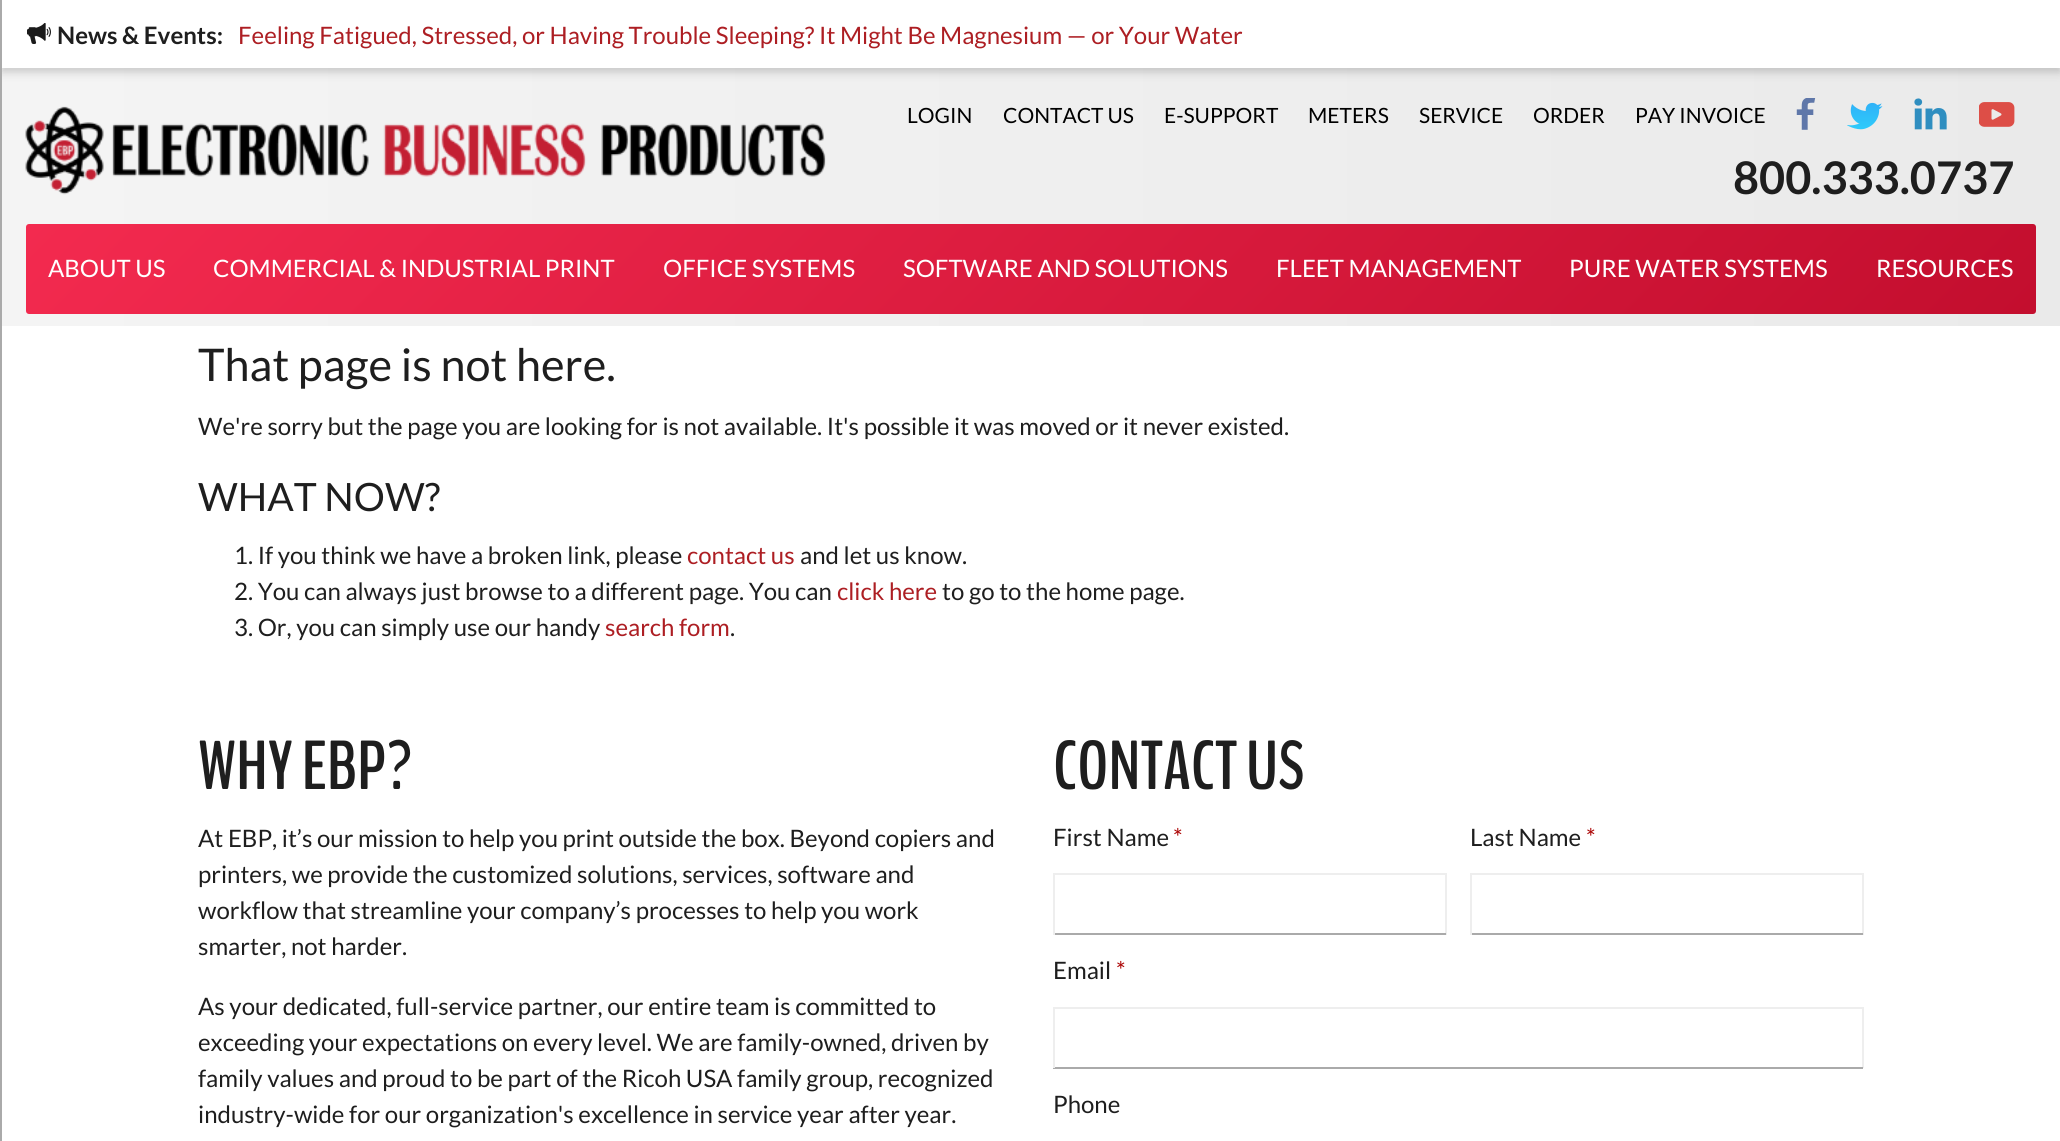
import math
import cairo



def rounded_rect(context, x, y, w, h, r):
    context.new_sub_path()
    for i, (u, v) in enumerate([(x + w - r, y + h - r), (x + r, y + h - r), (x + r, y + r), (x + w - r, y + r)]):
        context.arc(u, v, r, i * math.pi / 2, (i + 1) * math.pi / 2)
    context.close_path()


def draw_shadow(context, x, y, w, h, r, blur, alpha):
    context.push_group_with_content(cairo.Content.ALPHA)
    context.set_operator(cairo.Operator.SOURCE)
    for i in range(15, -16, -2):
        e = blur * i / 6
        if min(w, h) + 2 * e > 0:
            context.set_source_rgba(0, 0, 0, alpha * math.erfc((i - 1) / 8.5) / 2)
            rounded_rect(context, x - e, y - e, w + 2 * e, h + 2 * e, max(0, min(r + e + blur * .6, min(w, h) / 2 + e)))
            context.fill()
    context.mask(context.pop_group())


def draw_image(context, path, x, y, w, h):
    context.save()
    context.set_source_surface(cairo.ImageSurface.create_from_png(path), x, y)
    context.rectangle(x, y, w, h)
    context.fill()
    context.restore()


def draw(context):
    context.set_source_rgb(1, 1, 1)
    context.paint()
    context.set_source_rgb(170 / 255, 170 / 255, 170 / 255)
    context.rectangle(0, 0, 2, 1141)
    context.fill()
    gradient = cairo.LinearGradient(1.5, 162, 2060, 162)
    gradient.add_color_stop_rgba(0.01, 244 / 255, 244 / 255, 244 / 255, 1)
    gradient.add_color_stop_rgba(1, 234 / 255, 234 / 255, 234 / 255, 1)
    context.set_source(gradient)
    context.rectangle(2, 68, 2058, 258)
    context.fill()
    context.save()
    context.rectangle(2, 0, 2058, 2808)
    context.clip()
    context.set_source_rgb(0, 0, 0)
    draw_shadow(context, 2, 3, 2058, 69, 0, 4.5, 0.18)
    context.restore()
    context.set_source_rgb(1, 1, 1)
    context.rectangle(2, 0, 2058, 68)
    context.fill()
    draw_image(context, "images/1.png", 27, 23, 24, 21)
    draw_image(context, "images/2.png", 25, 106, 801, 89)
    draw_image(context, "images/3.png", 1796, 98, 20, 32)
    draw_image(context, "images/4.png", 1847, 102, 36, 28)
    draw_image(context, "images/5.png", 1914, 98, 33, 32)
    draw_image(context, "images/6.png", 1979, 102, 36, 25)
    gradient = cairo.LinearGradient(505, -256, 1556, 794)
    gradient.add_color_stop_rgba(0, 243 / 255, 42 / 255, 79 / 255, 1)
    gradient.add_color_stop_rgba(1, 195 / 255, 14 / 255, 46 / 255, 1)
    context.set_source(gradient)
    rounded_rect(context, 26, 224, 2010, 90, 3)
    context.fill()
    context.set_source_rgb(238 / 255, 238 / 255, 238 / 255)
    context.rectangle(1053, 873, 393, 2)
    context.fill()
    context.rectangle(1445, 873, 2, 62)
    context.fill()
    context.set_source_rgb(170 / 255, 170 / 255, 170 / 255)
    context.rectangle(1053, 933, 393, 2)
    context.fill()
    context.set_source_rgb(238 / 255, 238 / 255, 238 / 255)
    context.rectangle(1053, 873, 2, 62)
    context.fill()
    context.rectangle(1470, 873, 393, 2)
    context.fill()
    context.rectangle(1862, 873, 2, 62)
    context.fill()
    context.set_source_rgb(170 / 255, 170 / 255, 170 / 255)
    context.rectangle(1470, 933, 393, 2)
    context.fill()
    context.set_source_rgb(238 / 255, 238 / 255, 238 / 255)
    context.rectangle(1470, 873, 2, 62)
    context.fill()
    context.rectangle(1053, 1007, 810, 2)
    context.fill()
    context.rectangle(1862, 1007, 2, 61)
    context.fill()
    context.set_source_rgb(170 / 255, 170 / 255, 170 / 255)
    context.rectangle(1053, 1067, 810, 2)
    context.fill()
    context.set_source_rgb(238 / 255, 238 / 255, 238 / 255)
    context.rectangle(1053, 1007, 2, 61)
    context.fill()
    context.select_font_face("Lato", cairo.FontSlant.NORMAL, cairo.FontWeight.BOLD)
    context.set_font_size(24)
    context.set_source_rgb(30 / 255, 30 / 255, 30 / 255)
    context.move_to(57, 44)
    context.show_text("News & Events:")
    context.select_font_face("Lato")
    context.set_source_rgb(173 / 255, 30 / 255, 35 / 255)
    context.move_to(238, 44)
    context.show_text("Feeling Fatigued, Stressed, or Having Trouble Sleeping? It Might Be Magnesium — or Your Water")
    context.set_font_size(21)
    context.set_source_rgb(0, 0, 0)
    context.move_to(907, 123)
    context.show_text("LOGIN")
    context.move_to(1003, 123)
    context.show_text("CONTACT US")
    context.move_to(1164, 123)
    context.show_text("E-SUPPORT")
    context.move_to(1308, 123)
    context.show_text("METERS")
    context.move_to(1419, 123)
    context.show_text("SERVICE")
    context.move_to(1533, 123)
    context.show_text("ORDER")
    context.move_to(1635, 123)
    context.show_text("PAY INVOICE")
    context.select_font_face("Lato", cairo.FontSlant.NORMAL, cairo.FontWeight.BOLD)
    context.set_font_size(45)
    context.set_source_rgb(30 / 255, 30 / 255, 30 / 255)
    context.move_to(1733, 194)
    context.show_text("800.333.0737")
    context.select_font_face("Lato")
    context.set_font_size(24)
    context.set_source_rgb(1, 1, 1)
    context.move_to(48, 277)
    context.show_text("ABOUT US")
    context.move_to(213, 277)
    context.show_text("COMMERCIAL & INDUSTRIAL PRINT")
    context.move_to(663, 277)
    context.show_text("OFFICE SYSTEMS")
    context.move_to(903, 277)
    context.show_text("SOFTWARE AND SOLUTIONS")
    context.move_to(1276, 277)
    context.show_text("FLEET MANAGEMENT")
    context.move_to(1569, 277)
    context.show_text("PURE WATER SYSTEMS")
    context.move_to(1876, 277)
    context.show_text("RESOURCES")
    context.set_font_size(45)
    context.set_source_rgb(30 / 255, 30 / 255, 30 / 255)
    context.move_to(198, 381)
    context.show_text("That page is not here.")
    context.set_font_size(24)
    context.move_to(198, 435)
    context.show_text("We're sorry but the page you are looking for is not available. It's possible it was moved or it never existed.")
    context.set_font_size(39)
    context.move_to(198, 511)
    context.show_text("WHAT NOW?")
    context.set_font_size(24)
    context.move_to(234, 564)
    context.show_text("1. If you think we have a broken link, please")
    context.set_source_rgb(173 / 255, 30 / 255, 35 / 255)
    context.move_to(687, 564)
    context.show_text("contact us")
    context.set_source_rgb(30 / 255, 30 / 255, 30 / 255)
    context.move_to(800, 564)
    context.show_text("and let us know.")
    context.move_to(234, 600)
    context.show_text("2. You can always just browse to a different page. You can")
    context.set_source_rgb(173 / 255, 30 / 255, 35 / 255)
    context.move_to(837, 600)
    context.show_text("click here")
    context.set_source_rgb(30 / 255, 30 / 255, 30 / 255)
    context.move_to(942, 600)
    context.show_text("to go to the home page.")
    context.move_to(234, 636)
    context.show_text("3. Or, you can simply use our handy")
    context.set_source_rgb(173 / 255, 30 / 255, 35 / 255)
    context.move_to(605, 636)
    context.show_text("search form")
    context.set_source_rgb(30 / 255, 30 / 255, 30 / 255)
    context.move_to(730, 636)
    context.show_text(".")
    context.select_font_face("BenchNine", cairo.FontSlant.NORMAL, cairo.FontWeight.BOLD)
    context.set_font_size(69)
    context.move_to(198, 789)
    context.show_text("WHY EBP?")
    context.select_font_face("Lato")
    context.set_font_size(24)
    context.move_to(198, 847)
    context.show_text("At EBP, it’s our mission to help you print outside the box. Beyond copiers and")
    context.move_to(198, 883)
    context.show_text("printers, we provide the customized solutions, services, software and")
    context.move_to(198, 919)
    context.show_text("workflow that streamline your company’s processes to help you work")
    context.move_to(198, 955)
    context.show_text("smarter, not harder.")
    context.move_to(198, 1015)
    context.show_text("As your dedicated, full-service partner, our entire team is committed to")
    context.move_to(198, 1051)
    context.show_text("exceeding your expectations on every level. We are family-owned, driven by")
    context.move_to(198, 1087)
    context.show_text("family values and proud to be part of the Ricoh USA family group, recognized")
    context.move_to(198, 1123)
    context.show_text("industry-wide for our organization's excellence in service year after year.")
    context.select_font_face("BenchNine", cairo.FontSlant.NORMAL, cairo.FontWeight.BOLD)
    context.set_font_size(69)
    context.move_to(1053, 789)
    context.show_text("CONTACT US")
    context.select_font_face("Lato")
    context.set_font_size(24)
    context.move_to(1053, 846)
    context.show_text("First Name")
    context.set_source_rgb(170 / 255, 0, 0)
    context.move_to(1173, 846)
    context.show_text("*")
    context.set_source_rgb(30 / 255, 30 / 255, 30 / 255)
    context.move_to(1470, 846)
    context.show_text("Last Name")
    context.set_source_rgb(170 / 255, 0, 0)
    context.move_to(1586, 846)
    context.show_text("*")
    context.set_source_rgb(30 / 255, 30 / 255, 30 / 255)
    context.move_to(1053, 979)
    context.show_text("Email")
    context.set_source_rgb(170 / 255, 0, 0)
    context.move_to(1116, 979)
    context.show_text("*")
    context.set_source_rgb(30 / 255, 30 / 255, 30 / 255)
    context.move_to(1053, 1113)
    context.show_text("Phone")


surface = cairo.ImageSurface(cairo.Format.RGB24, 2060, 1141)
context = cairo.Context(surface)
options = cairo.FontOptions()
options.set_hint_metrics(cairo.HintMetrics.OFF)
options.set_hint_style(cairo.HintStyle.NONE)
context.set_font_options(options)
context.set_miter_limit(4)
draw(context)
surface.write_to_png("out.png")
